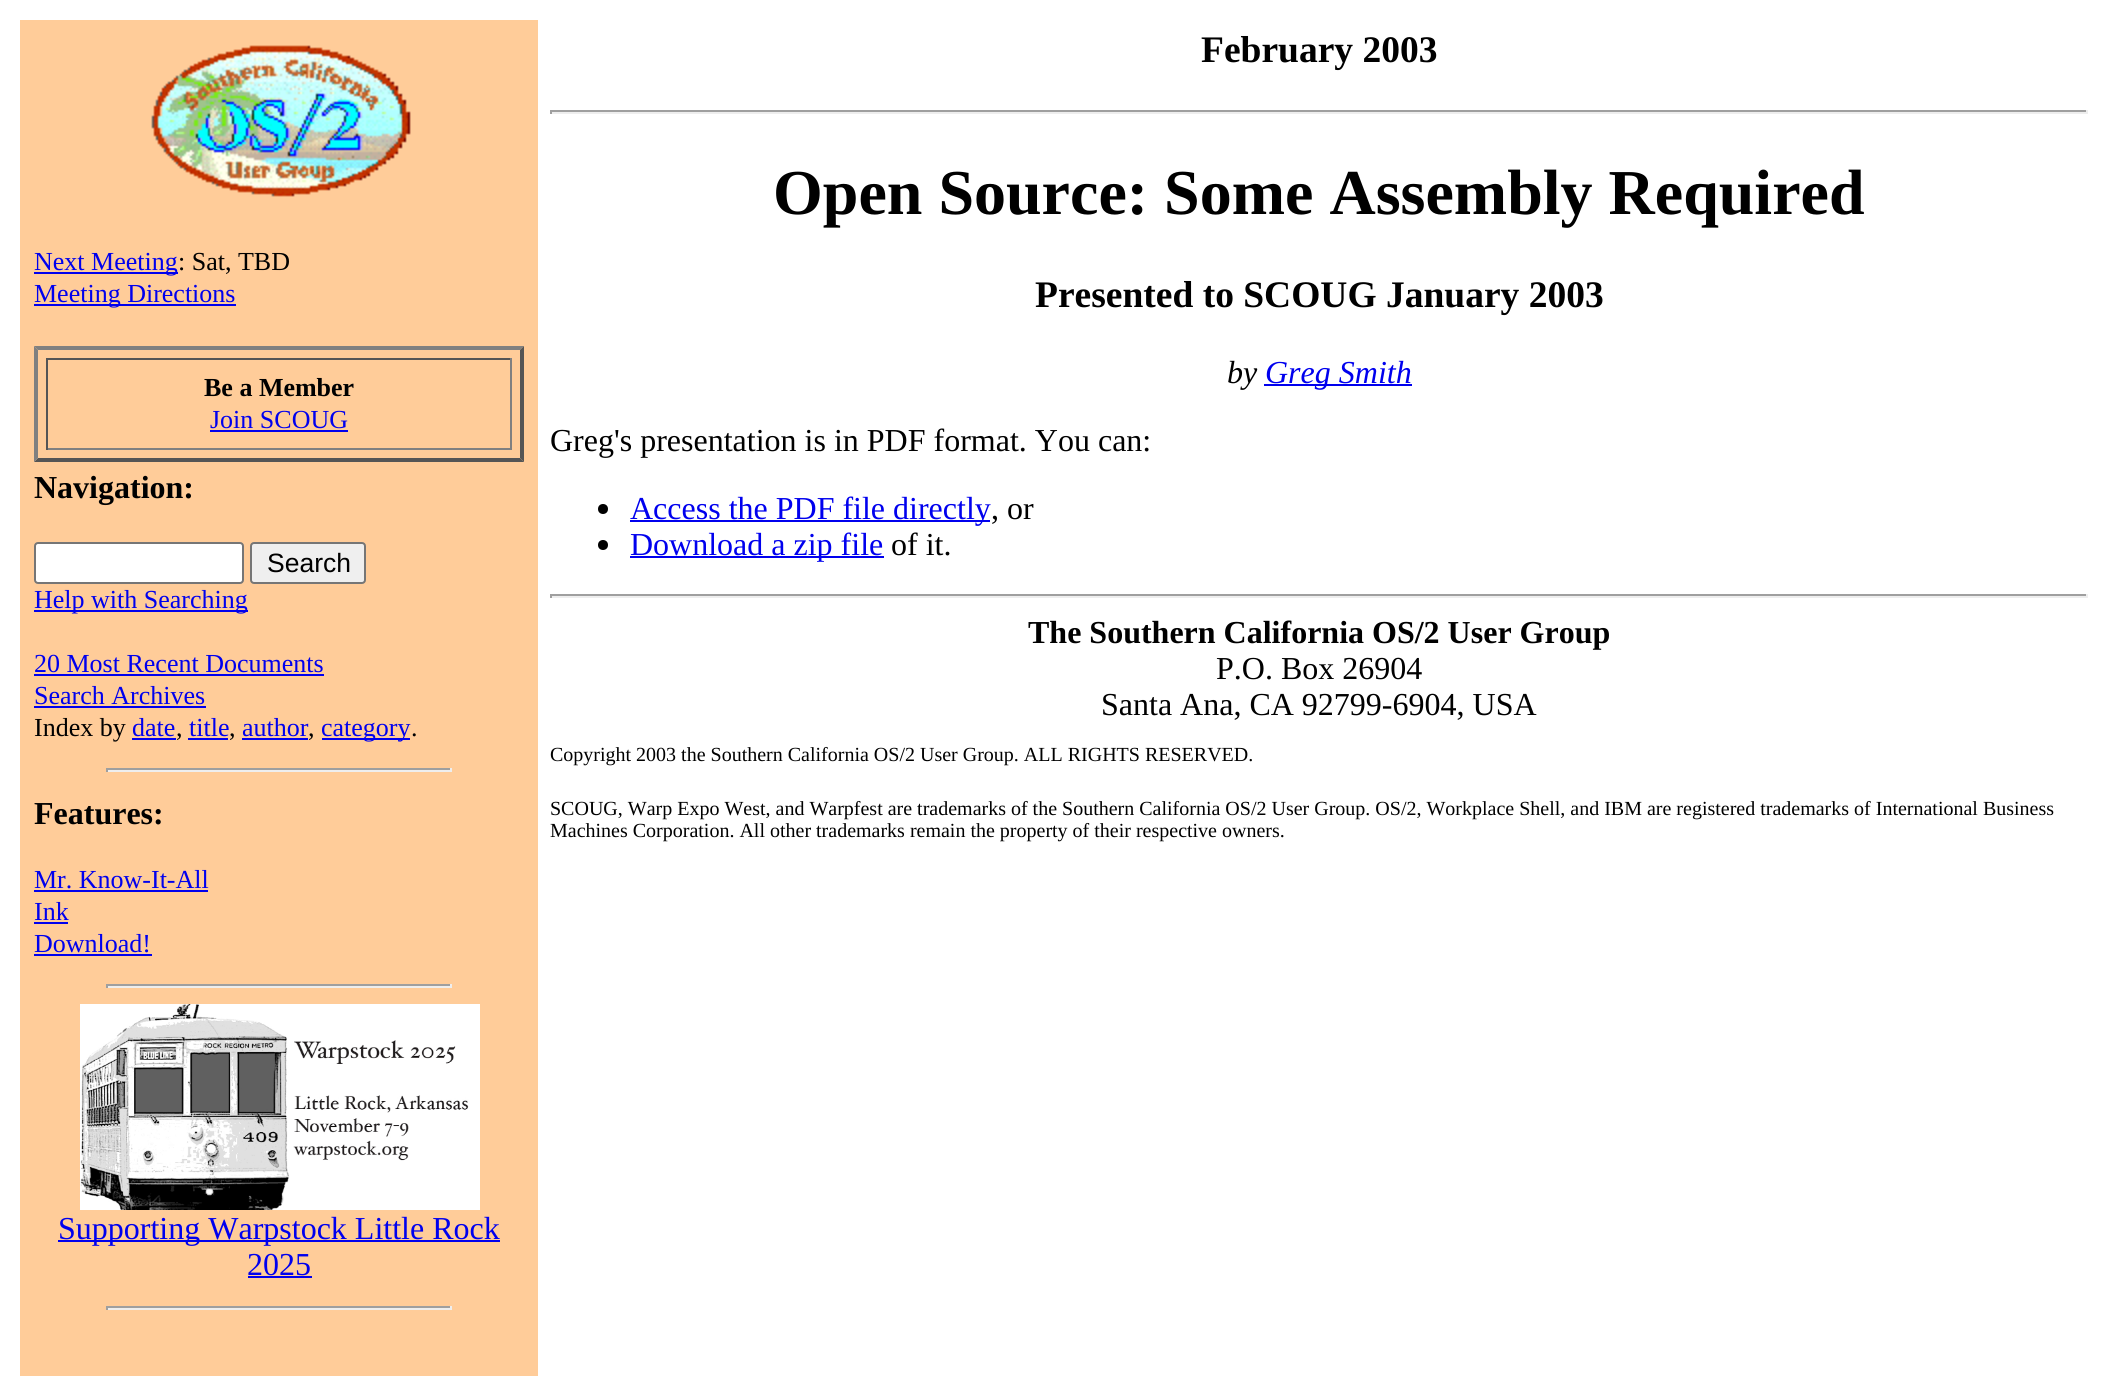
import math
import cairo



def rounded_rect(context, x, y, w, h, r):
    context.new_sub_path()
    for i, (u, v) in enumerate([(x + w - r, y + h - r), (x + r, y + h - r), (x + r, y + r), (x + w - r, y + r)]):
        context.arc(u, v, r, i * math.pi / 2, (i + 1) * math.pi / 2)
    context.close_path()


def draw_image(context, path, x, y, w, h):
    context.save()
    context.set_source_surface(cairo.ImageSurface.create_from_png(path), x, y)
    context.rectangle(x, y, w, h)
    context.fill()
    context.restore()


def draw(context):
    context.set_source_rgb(1, 1, 1)
    context.paint()
    context.set_source_rgb(1, 204 / 255, 153 / 255)
    context.rectangle(20, 20, 518, 1356)
    context.fill()
    draw_image(context, "images/1.png", 151, 45, 260, 152)
    context.set_source_rgb(0, 0, 238 / 255)
    context.rectangle(34, 272, 144, 2)
    context.fill()
    context.rectangle(34, 304, 202, 2)
    context.fill()
    context.set_source_rgb(128 / 255, 128 / 255, 128 / 255)
    context.new_path()
    context.move_to(34, 346)
    context.line_to(524, 346)
    context.line_to(520, 350)
    context.line_to(38, 350)
    context.close_path()
    context.fill()
    context.set_source_rgb(85 / 255, 85 / 255, 85 / 255)
    context.new_path()
    context.move_to(524, 346)
    context.line_to(524, 462)
    context.line_to(520, 458)
    context.line_to(520, 350)
    context.close_path()
    context.fill()
    context.new_path()
    context.move_to(524, 462)
    context.line_to(34, 462)
    context.line_to(38, 458)
    context.line_to(520, 458)
    context.close_path()
    context.fill()
    context.set_source_rgb(128 / 255, 128 / 255, 128 / 255)
    context.new_path()
    context.move_to(34, 462)
    context.line_to(34, 346)
    context.line_to(38, 350)
    context.line_to(38, 458)
    context.close_path()
    context.fill()
    context.set_source_rgb(85 / 255, 85 / 255, 85 / 255)
    context.rectangle(46, 358, 466, 2)
    context.fill()
    context.set_source_rgb(128 / 255, 128 / 255, 128 / 255)
    context.rectangle(510, 358, 2, 92)
    context.fill()
    context.rectangle(46, 448, 466, 2)
    context.fill()
    context.set_source_rgb(85 / 255, 85 / 255, 85 / 255)
    context.rectangle(46, 358, 2, 92)
    context.fill()
    context.set_source_rgb(0, 0, 238 / 255)
    context.rectangle(210, 430, 138, 2)
    context.fill()
    context.set_source_rgb(1, 1, 1)
    rounded_rect(context, 35, 543, 208, 40, 3)
    context.fill_preserve()
    context.set_source_rgb(118 / 255, 118 / 255, 118 / 255)
    context.stroke()
    context.set_source_rgb(239 / 255, 239 / 255, 239 / 255)
    rounded_rect(context, 251, 543, 114, 40, 3)
    context.fill_preserve()
    context.set_source_rgb(118 / 255, 118 / 255, 118 / 255)
    context.stroke()
    context.set_source_rgb(0, 0, 238 / 255)
    context.rectangle(34, 610, 214, 2)
    context.fill()
    context.rectangle(34, 674, 290, 2)
    context.fill()
    context.rectangle(34, 706, 172, 2)
    context.fill()
    context.rectangle(132, 738, 44, 2)
    context.fill()
    context.rectangle(188, 738, 40, 2)
    context.fill()
    context.rectangle(242, 738, 66, 2)
    context.fill()
    context.rectangle(322, 738, 88, 2)
    context.fill()
    context.set_source_rgb(159 / 255, 159 / 255, 159 / 255)
    context.rectangle(106, 768, 346, 2)
    context.fill()
    context.set_source_rgb(238 / 255, 238 / 255, 238 / 255)
    context.rectangle(450, 768, 2, 4)
    context.fill()
    context.rectangle(106, 770, 346, 2)
    context.fill()
    context.set_source_rgb(159 / 255, 159 / 255, 159 / 255)
    context.rectangle(106, 768, 2, 4)
    context.fill()
    context.set_source_rgb(0, 0, 238 / 255)
    context.rectangle(34, 890, 174, 2)
    context.fill()
    context.rectangle(34, 922, 34, 2)
    context.fill()
    context.rectangle(34, 954, 118, 2)
    context.fill()
    context.set_source_rgb(159 / 255, 159 / 255, 159 / 255)
    context.rectangle(106, 984, 346, 2)
    context.fill()
    context.set_source_rgb(238 / 255, 238 / 255, 238 / 255)
    context.rectangle(450, 984, 2, 4)
    context.fill()
    context.rectangle(106, 986, 346, 2)
    context.fill()
    context.set_source_rgb(159 / 255, 159 / 255, 159 / 255)
    context.rectangle(106, 984, 2, 4)
    context.fill()
    draw_image(context, "images/2.png", 80, 1004, 400, 206)
    context.set_source_rgb(0, 0, 238 / 255)
    context.rectangle(58, 1240, 442, 2)
    context.fill()
    context.rectangle(248, 1276, 64, 2)
    context.fill()
    context.set_source_rgb(159 / 255, 159 / 255, 159 / 255)
    context.rectangle(106, 1306, 346, 2)
    context.fill()
    context.set_source_rgb(238 / 255, 238 / 255, 238 / 255)
    context.rectangle(450, 1306, 2, 4)
    context.fill()
    context.rectangle(106, 1308, 346, 2)
    context.fill()
    context.set_source_rgb(159 / 255, 159 / 255, 159 / 255)
    context.rectangle(106, 1306, 2, 4)
    context.fill()
    context.rectangle(550, 110, 1538, 2)
    context.fill()
    context.set_source_rgb(238 / 255, 238 / 255, 238 / 255)
    context.rectangle(2086, 110, 2, 4)
    context.fill()
    context.rectangle(550, 112, 1538, 2)
    context.fill()
    context.set_source_rgb(159 / 255, 159 / 255, 159 / 255)
    context.rectangle(550, 110, 2, 4)
    context.fill()
    context.set_source_rgb(0, 0, 238 / 255)
    context.rectangle(1264, 384, 148, 2)
    context.fill()
    context.set_source_rgb(0, 0, 0)
    context.arc(603, 509, 5, 0, 2 * math.pi)
    context.fill()
    context.set_source_rgb(0, 0, 238 / 255)
    context.rectangle(630, 520, 360, 2)
    context.fill()
    context.set_source_rgb(0, 0, 0)
    context.arc(603, 545, 5, 0, 2 * math.pi)
    context.fill()
    context.set_source_rgb(0, 0, 238 / 255)
    context.rectangle(630, 556, 254, 2)
    context.fill()
    context.set_source_rgb(159 / 255, 159 / 255, 159 / 255)
    context.rectangle(550, 594, 1538, 2)
    context.fill()
    context.set_source_rgb(238 / 255, 238 / 255, 238 / 255)
    context.rectangle(2086, 594, 2, 4)
    context.fill()
    context.rectangle(550, 596, 1538, 2)
    context.fill()
    context.set_source_rgb(159 / 255, 159 / 255, 159 / 255)
    context.rectangle(550, 594, 2, 4)
    context.fill()
    context.select_font_face("Liberation Serif")
    context.set_font_size(26)
    context.set_source_rgb(0, 0, 238 / 255)
    context.move_to(34, 270)
    context.show_text("Next Meeting")
    context.set_source_rgb(0, 0, 0)
    context.move_to(178, 270)
    context.show_text(": Sat, TBD")
    context.set_source_rgb(0, 0, 238 / 255)
    context.move_to(34, 302)
    context.show_text("Meeting Directions")
    context.select_font_face("Liberation Serif", cairo.FontSlant.NORMAL, cairo.FontWeight.BOLD)
    context.set_source_rgb(0, 0, 0)
    context.move_to(204, 396)
    context.show_text("Be a Member")
    context.select_font_face("Liberation Serif")
    context.set_source_rgb(0, 0, 238 / 255)
    context.move_to(210, 428)
    context.show_text("Join SCOUG")
    context.select_font_face("Liberation Serif", cairo.FontSlant.NORMAL, cairo.FontWeight.BOLD)
    context.set_font_size(32)
    context.set_source_rgb(0, 0, 0)
    context.move_to(34, 498)
    context.show_text("Navigation:")
    context.select_font_face("Liberation Sans")
    context.set_font_size(26.5)
    context.move_to(267, 572)
    context.show_text("Search")
    context.select_font_face("Liberation Serif")
    context.set_font_size(26)
    context.set_source_rgb(0, 0, 238 / 255)
    context.move_to(34, 608)
    context.show_text("Help with Searching")
    context.move_to(34, 672)
    context.show_text("20 Most Recent Documents")
    context.move_to(34, 704)
    context.show_text("Search Archives")
    context.set_source_rgb(0, 0, 0)
    context.move_to(34, 736)
    context.show_text("Index by")
    context.set_source_rgb(0, 0, 238 / 255)
    context.move_to(132, 736)
    context.show_text("date")
    context.set_source_rgb(0, 0, 0)
    context.move_to(176, 736)
    context.show_text(",")
    context.set_source_rgb(0, 0, 238 / 255)
    context.move_to(189, 736)
    context.show_text("title")
    context.set_source_rgb(0, 0, 0)
    context.move_to(229, 736)
    context.show_text(",")
    context.set_source_rgb(0, 0, 238 / 255)
    context.move_to(242, 736)
    context.show_text("author")
    context.set_source_rgb(0, 0, 0)
    context.move_to(308, 736)
    context.show_text(",")
    context.set_source_rgb(0, 0, 238 / 255)
    context.move_to(321, 736)
    context.show_text("category")
    context.set_source_rgb(0, 0, 0)
    context.move_to(411, 736)
    context.show_text(".")
    context.select_font_face("Liberation Serif", cairo.FontSlant.NORMAL, cairo.FontWeight.BOLD)
    context.set_font_size(32)
    context.move_to(34, 824)
    context.show_text("Features:")
    context.select_font_face("Liberation Serif")
    context.set_font_size(26)
    context.set_source_rgb(0, 0, 238 / 255)
    context.move_to(34, 888)
    context.show_text("Mr. Know-It-All")
    context.move_to(34, 920)
    context.show_text("Ink")
    context.move_to(34, 952)
    context.show_text("Download!")
    context.set_font_size(32)
    context.move_to(58, 1239)
    context.show_text("Supporting Warpstock Little Rock")
    context.move_to(247, 1275)
    context.show_text("2025")
    context.select_font_face("Liberation Serif", cairo.FontSlant.NORMAL, cairo.FontWeight.BOLD)
    context.set_font_size(37.5)
    context.set_source_rgb(0, 0, 0)
    context.move_to(1201, 62)
    context.show_text("February 2003")
    context.set_font_size(64)
    context.move_to(773, 214)
    context.show_text("Open Source: Some Assembly Required")
    context.set_font_size(37.5)
    context.move_to(1035, 307)
    context.show_text("Presented to SCOUG January 2003")
    context.select_font_face("Liberation Serif", cairo.FontSlant.ITALIC)
    context.set_font_size(32)
    context.move_to(1227, 383)
    context.show_text("by")
    context.set_source_rgb(0, 0, 238 / 255)
    context.move_to(1265, 383)
    context.show_text("Greg Smith")
    context.select_font_face("Liberation Serif")
    context.set_source_rgb(0, 0, 0)
    context.move_to(550, 451)
    context.show_text("Greg's presentation is in PDF format. You can:")
    context.set_source_rgb(0, 0, 238 / 255)
    context.move_to(630, 519)
    context.show_text("Access the PDF file directly")
    context.set_source_rgb(0, 0, 0)
    context.move_to(991, 519)
    context.show_text(", or")
    context.set_source_rgb(0, 0, 238 / 255)
    context.move_to(630, 555)
    context.show_text("Download a zip file")
    context.set_source_rgb(0, 0, 0)
    context.move_to(891, 555)
    context.show_text("of it.")
    context.select_font_face("Liberation Serif", cairo.FontSlant.NORMAL, cairo.FontWeight.BOLD)
    context.move_to(1028, 643)
    context.show_text("The Southern California OS/2 User Group")
    context.select_font_face("Liberation Serif")
    context.move_to(1216, 679)
    context.show_text("P.O. Box 26904")
    context.move_to(1101, 715)
    context.show_text("Santa Ana, CA 92799-6904, USA")
    context.set_font_size(20)
    context.move_to(550, 761)
    context.show_text("Copyright 2003 the Southern California OS/2 User Group. ALL RIGHTS RESERVED.")
    context.move_to(550, 815)
    context.show_text("SCOUG, Warp Expo West, and Warpfest are trademarks of the Southern California OS/2 User Group. OS/2, Workplace Shell, and IBM are registered trademarks of International Business")
    context.move_to(550, 837)
    context.show_text("Machines Corporation. All other trademarks remain the property of their respective owners.")


surface = cairo.ImageSurface(cairo.Format.RGB24, 2115, 1376)
context = cairo.Context(surface)
options = cairo.FontOptions()
options.set_hint_metrics(cairo.HintMetrics.OFF)
options.set_hint_style(cairo.HintStyle.NONE)
context.set_font_options(options)
context.set_miter_limit(4)
draw(context)
surface.write_to_png("out.png")
